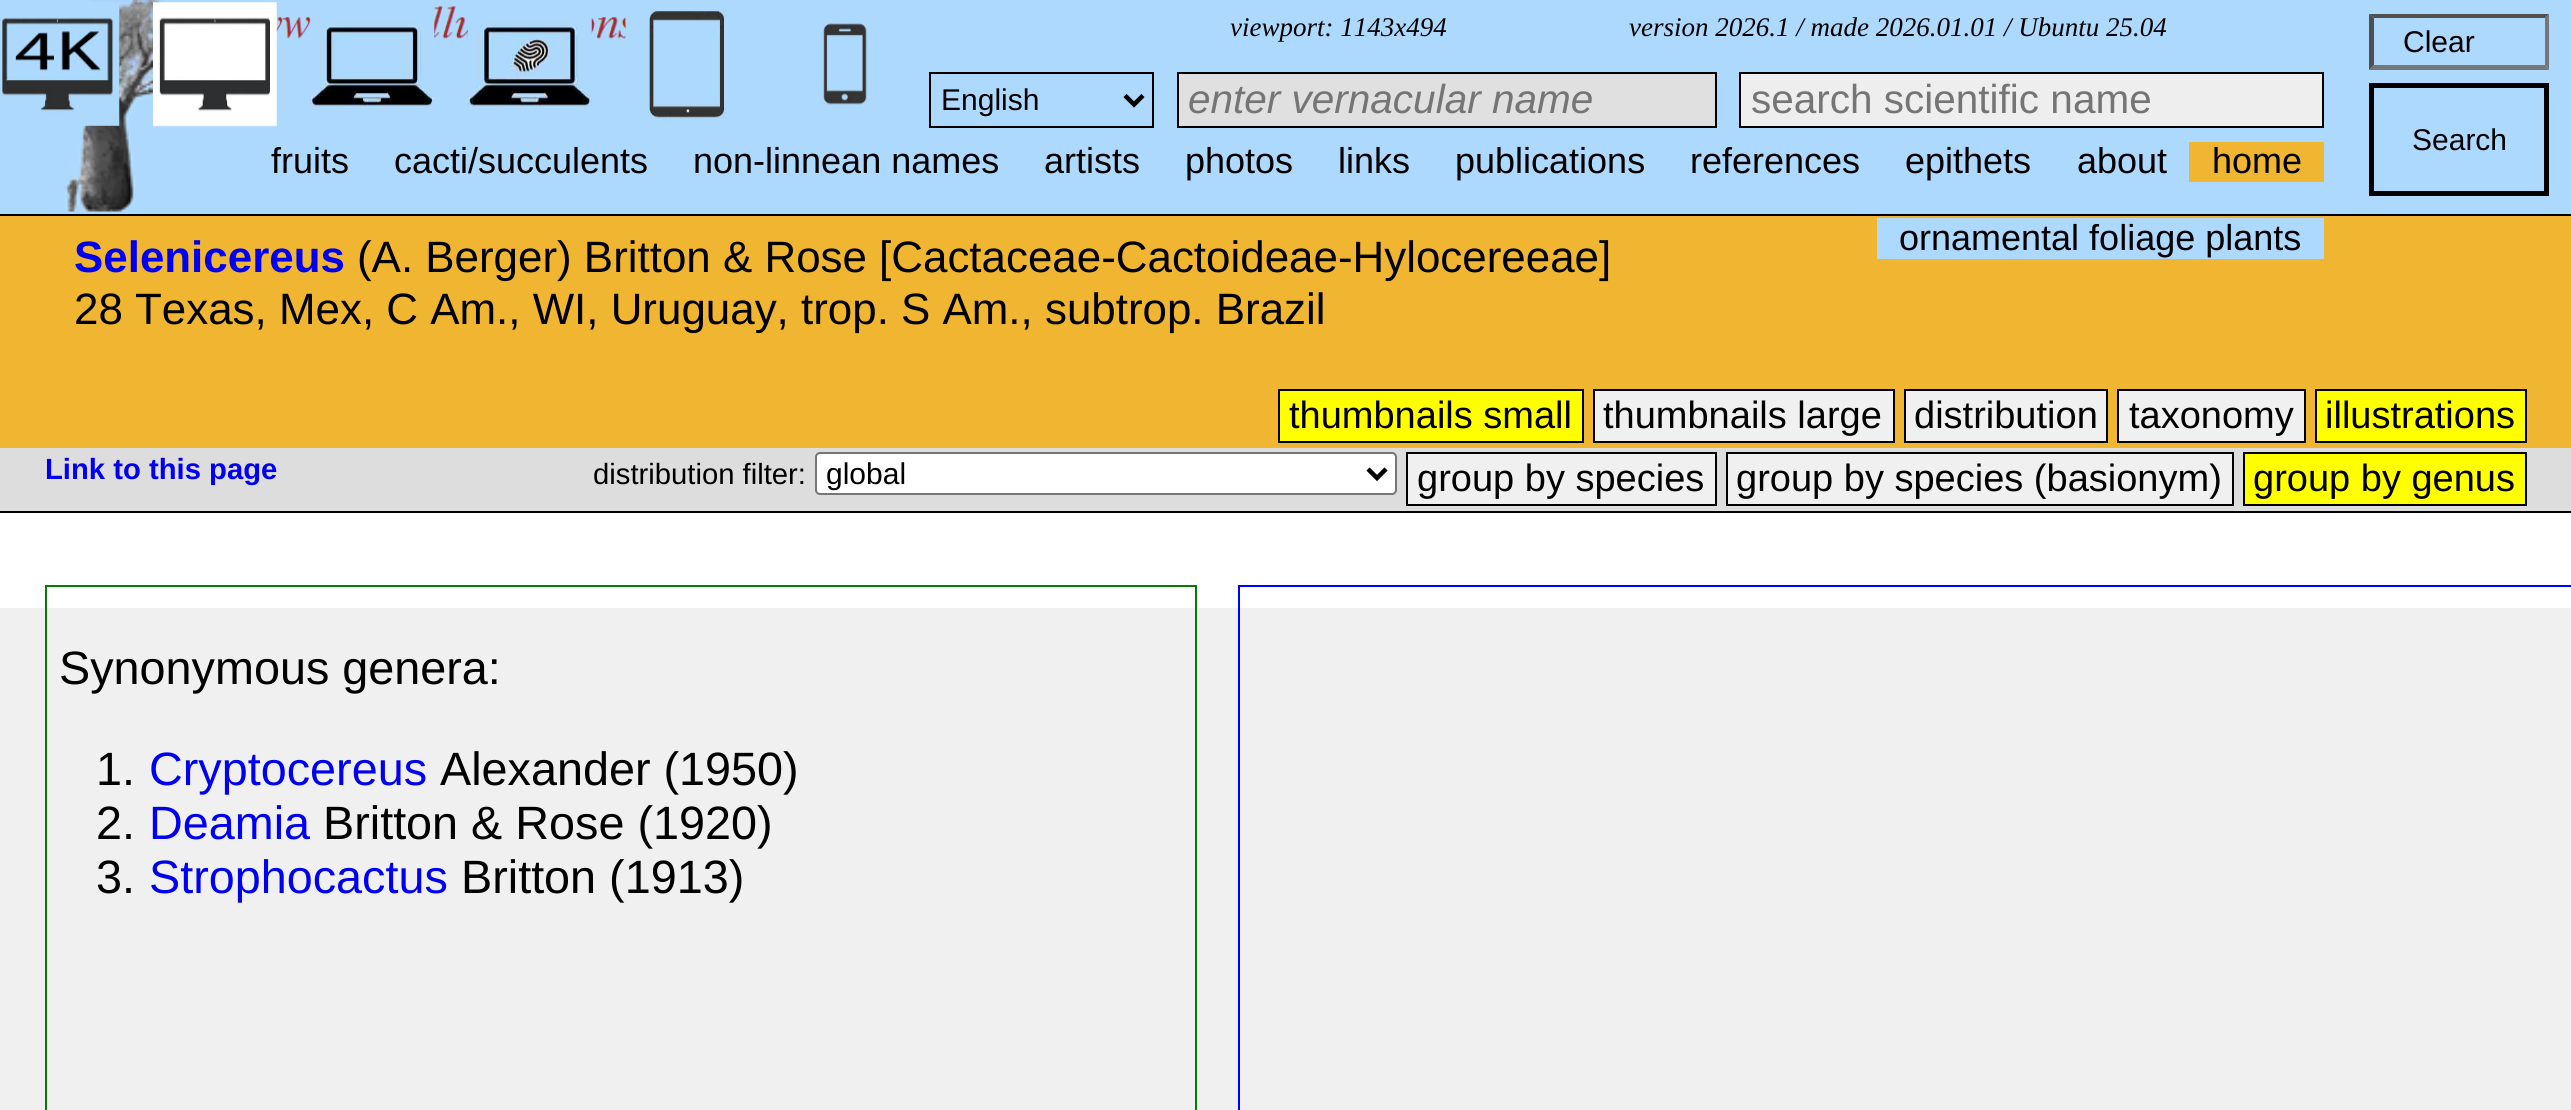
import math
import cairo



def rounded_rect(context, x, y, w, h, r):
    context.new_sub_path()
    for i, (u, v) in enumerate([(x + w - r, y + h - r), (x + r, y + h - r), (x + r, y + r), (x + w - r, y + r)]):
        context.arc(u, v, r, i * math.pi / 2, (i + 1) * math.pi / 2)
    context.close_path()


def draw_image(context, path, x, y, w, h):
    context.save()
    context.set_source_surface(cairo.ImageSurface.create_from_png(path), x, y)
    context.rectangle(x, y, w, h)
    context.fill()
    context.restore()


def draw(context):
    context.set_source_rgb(1, 1, 1)
    context.paint()
    context.set_source_rgb(173 / 255, 217 / 255, 254 / 255)
    context.rectangle(0, 0, 2571, 214)
    context.fill()
    context.set_source_rgb(0, 0, 0)
    context.rectangle(0, 214, 2571, 2)
    context.fill()
    draw_image(context, "images/1.png", 0, 0, 225, 212)
    draw_image(context, "images/2.png", 0, 2, 120, 124)
    draw_image(context, "images/8.png", 276, 6, 436, 43)
    draw_image(context, "images/3.png", 153, 2, 124, 125)
    draw_image(context, "images/4.png", 310, 6, 125, 101)
    draw_image(context, "images/5.png", 468, 9, 124, 98)
    draw_image(context, "images/6.png", 625, 11, 101, 110)
    draw_image(context, "images/7.png", 820, 22, 49, 83)
    context.set_source_rgb(79 / 255, 79 / 255, 79 / 255)
    context.new_path()
    context.move_to(2369, 14)
    context.line_to(2549, 14)
    context.line_to(2545, 18)
    context.line_to(2374, 18)
    context.close_path()
    context.fill()
    context.set_source_rgb(118 / 255, 118 / 255, 118 / 255)
    context.new_path()
    context.move_to(2549, 14)
    context.line_to(2549, 70)
    context.line_to(2545, 65)
    context.line_to(2545, 18)
    context.close_path()
    context.fill()
    context.new_path()
    context.move_to(2549, 70)
    context.line_to(2369, 70)
    context.line_to(2374, 65)
    context.line_to(2545, 65)
    context.close_path()
    context.fill()
    context.set_source_rgb(79 / 255, 79 / 255, 79 / 255)
    context.new_path()
    context.move_to(2369, 70)
    context.line_to(2369, 14)
    context.line_to(2374, 18)
    context.line_to(2374, 65)
    context.close_path()
    context.fill()
    context.rectangle(930, 73, 223, 54)
    context.set_source_rgb(0, 0, 0)
    context.stroke()
    context.new_path()
    context.move_to(1125, 95.5)
    context.line_to(1134, 104.5)
    context.line_to(1143, 95.5)
    context.set_line_width(4.5)
    context.stroke()
    context.set_source_rgb(224 / 255, 224 / 255, 224 / 255)
    context.rectangle(1178, 73, 538, 54)
    context.fill_preserve()
    context.set_source_rgb(0, 0, 0)
    context.set_line_width(2)
    context.stroke()
    context.set_source_rgb(238 / 255, 238 / 255, 238 / 255)
    context.rectangle(1740, 73, 583, 54)
    context.fill_preserve()
    context.set_source_rgb(0, 0, 0)
    context.stroke()
    context.rectangle(2371.5, 85.5, 175, 108)
    context.set_line_width(5)
    context.stroke()
    context.set_source_rgb(240 / 255, 181 / 255, 49 / 255)
    context.rectangle(2189, 142, 135, 40)
    context.fill()
    context.rectangle(0, 216, 2571, 232)
    context.fill()
    context.set_source_rgb(173 / 255, 217 / 255, 254 / 255)
    context.rectangle(1877, 218, 447, 41)
    context.fill()
    context.set_source_rgb(1, 1, 0)
    context.rectangle(1279, 390, 304, 52)
    context.fill_preserve()
    context.set_source_rgb(0, 0, 0)
    context.set_line_width(2)
    context.stroke()
    context.set_source_rgb(240 / 255, 240 / 255, 240 / 255)
    context.rectangle(1594, 390, 300, 52)
    context.fill_preserve()
    context.set_source_rgb(0, 0, 0)
    context.stroke()
    context.set_source_rgb(240 / 255, 240 / 255, 240 / 255)
    context.rectangle(1905, 390, 202, 52)
    context.fill_preserve()
    context.set_source_rgb(0, 0, 0)
    context.stroke()
    context.set_source_rgb(240 / 255, 240 / 255, 240 / 255)
    context.rectangle(2118, 390, 187, 52)
    context.fill_preserve()
    context.set_source_rgb(0, 0, 0)
    context.stroke()
    context.set_source_rgb(1, 1, 0)
    context.rectangle(2316, 390, 210, 52)
    context.fill_preserve()
    context.set_source_rgb(0, 0, 0)
    context.stroke()
    context.set_source_rgb(221 / 255, 221 / 255, 221 / 255)
    context.rectangle(0, 448, 2571, 63)
    context.fill()
    context.set_source_rgb(0, 0, 0)
    context.rectangle(0, 511, 2571, 2)
    context.fill()
    context.set_source_rgb(1, 1, 1)
    rounded_rect(context, 816, 453, 580, 41, 4)
    context.fill_preserve()
    context.set_source_rgb(118 / 255, 118 / 255, 118 / 255)
    context.stroke()
    context.new_path()
    context.move_to(1368, 469)
    context.line_to(1377, 478)
    context.line_to(1386, 469)
    context.set_source_rgb(0, 0, 0)
    context.set_line_width(4.5)
    context.stroke()
    context.set_source_rgb(240 / 255, 240 / 255, 240 / 255)
    context.rectangle(1407, 453, 309, 52)
    context.fill_preserve()
    context.set_source_rgb(0, 0, 0)
    context.set_line_width(2)
    context.stroke()
    context.set_source_rgb(240 / 255, 240 / 255, 240 / 255)
    context.rectangle(1727, 453, 506, 52)
    context.fill_preserve()
    context.set_source_rgb(0, 0, 0)
    context.stroke()
    context.set_source_rgb(1, 1, 0)
    context.rectangle(2244, 453, 282, 52)
    context.fill_preserve()
    context.set_source_rgb(0, 0, 0)
    context.stroke()
    context.set_source_rgb(240 / 255, 240 / 255, 240 / 255)
    context.rectangle(0, 608, 2571, 502)
    context.fill()
    context.rectangle(46, 586, 1150, 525)
    context.set_source_rgb(0, 128 / 255, 0)
    context.stroke()
    context.rectangle(1239, 586, 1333, 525)
    context.set_source_rgb(0, 0, 1)
    context.stroke()
    context.select_font_face("Liberation Serif", cairo.FontSlant.ITALIC)
    context.set_font_size(27)
    context.set_source_rgb(0, 0, 0)
    context.move_to(1230, 36)
    context.show_text("viewport: 1143x494")
    context.move_to(1629, 36)
    context.show_text("version 2026.1 / made 2026.01.01 / Ubuntu 25.04")
    context.select_font_face("Liberation Sans")
    context.set_font_size(30)
    context.move_to(2403, 52)
    context.show_text("Clear")
    context.move_to(941, 110)
    context.show_text("English")
    context.select_font_face("Liberation Sans", cairo.FontSlant.ITALIC)
    context.set_font_size(40.5)
    context.set_source_rgb(117 / 255, 117 / 255, 117 / 255)
    context.move_to(1188, 113)
    context.show_text("enter vernacular name")
    context.select_font_face("Liberation Sans")
    context.move_to(1751, 113)
    context.show_text("search scientific name")
    context.set_font_size(30)
    context.set_source_rgb(0, 0, 0)
    context.move_to(2412, 150)
    context.show_text("Search")
    context.set_font_size(36)
    context.move_to(271, 173)
    context.show_text("fruits")
    context.move_to(394, 173)
    context.show_text("cacti/succulents")
    context.move_to(693, 173)
    context.show_text("non-linnean names")
    context.move_to(1044, 173)
    context.show_text("artists")
    context.move_to(1185, 173)
    context.show_text("photos")
    context.move_to(1338, 173)
    context.show_text("links")
    context.move_to(1455, 173)
    context.show_text("publications")
    context.move_to(1690, 173)
    context.show_text("references")
    context.move_to(1905, 173)
    context.show_text("epithets")
    context.move_to(2077, 173)
    context.show_text("about")
    context.move_to(2212, 173)
    context.show_text("home")
    context.move_to(1899, 250)
    context.show_text("ornamental foliage plants")
    context.select_font_face("Liberation Sans", cairo.FontSlant.NORMAL, cairo.FontWeight.BOLD)
    context.set_font_size(43.9)
    context.set_source_rgb(0, 0, 238 / 255)
    context.move_to(74, 272)
    context.show_text("Selenicereus")
    context.select_font_face("Liberation Sans")
    context.set_source_rgb(0, 0, 0)
    context.move_to(357, 272)
    context.show_text("(A. Berger) Britton & Rose [Cactaceae-Cactoideae-Hylocereeae]")
    context.move_to(74, 324)
    context.show_text("28 Texas, Mex, C Am., WI, Uruguay, trop. S Am., subtrop. Brazil")
    context.set_font_size(38)
    context.move_to(1289, 428)
    context.show_text("thumbnails small")
    context.move_to(1603, 428)
    context.show_text("thumbnails large")
    context.move_to(1914, 428)
    context.show_text("distribution")
    context.move_to(2129, 428)
    context.show_text("taxonomy")
    context.move_to(2325, 428)
    context.show_text("illustrations")
    context.select_font_face("Liberation Sans", cairo.FontSlant.NORMAL, cairo.FontWeight.BOLD)
    context.set_font_size(29.25)
    context.set_source_rgb(0, 0, 238 / 255)
    context.move_to(45, 479)
    context.show_text("Link to this page")
    context.select_font_face("Liberation Sans")
    context.set_source_rgb(0, 0, 0)
    context.move_to(593, 484)
    context.show_text("distribution filter:")
    context.set_font_size(30)
    context.move_to(826, 484)
    context.show_text("global")
    context.set_font_size(38)
    context.move_to(1417, 491)
    context.show_text("group by species")
    context.move_to(1736, 491)
    context.show_text("group by species (basionym)")
    context.move_to(2253, 491)
    context.show_text("group by genus")
    context.set_font_size(46.75)
    context.move_to(59, 684)
    context.show_text("Synonymous genera:")
    context.move_to(96, 785)
    context.show_text("1.")
    context.set_source_rgb(0, 0, 238 / 255)
    context.move_to(149, 785)
    context.show_text("Cryptocereus")
    context.set_source_rgb(0, 0, 0)
    context.move_to(440, 785)
    context.show_text("Alexander (1950)")
    context.move_to(96, 839)
    context.show_text("2.")
    context.set_source_rgb(0, 0, 238 / 255)
    context.move_to(149, 839)
    context.show_text("Deamia")
    context.set_source_rgb(0, 0, 0)
    context.move_to(323, 839)
    context.show_text("Britton & Rose (1920)")
    context.move_to(96, 893)
    context.show_text("3.")
    context.set_source_rgb(0, 0, 238 / 255)
    context.move_to(149, 893)
    context.show_text("Strophocactus")
    context.set_source_rgb(0, 0, 0)
    context.move_to(461, 893)
    context.show_text("Britton (1913)")


surface = cairo.ImageSurface(cairo.Format.RGB24, 2571, 1110)
context = cairo.Context(surface)
options = cairo.FontOptions()
options.set_hint_metrics(cairo.HintMetrics.OFF)
options.set_hint_style(cairo.HintStyle.NONE)
context.set_font_options(options)
context.set_miter_limit(4)
draw(context)
surface.write_to_png("out.png")
